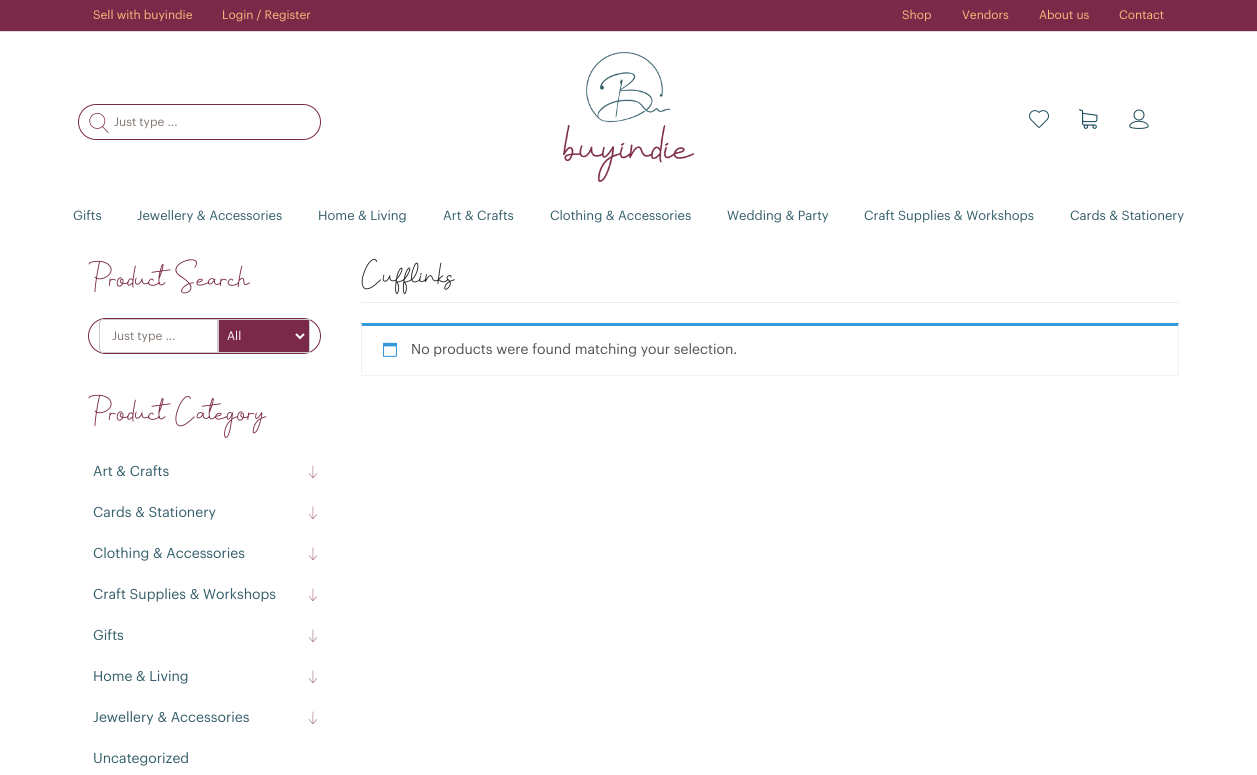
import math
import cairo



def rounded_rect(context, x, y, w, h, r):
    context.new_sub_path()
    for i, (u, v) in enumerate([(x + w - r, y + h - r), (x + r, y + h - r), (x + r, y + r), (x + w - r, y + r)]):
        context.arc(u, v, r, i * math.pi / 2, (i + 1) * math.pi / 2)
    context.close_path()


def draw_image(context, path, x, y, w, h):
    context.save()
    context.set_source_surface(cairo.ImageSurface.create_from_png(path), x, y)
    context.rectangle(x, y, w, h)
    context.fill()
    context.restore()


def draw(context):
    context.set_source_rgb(1, 1, 1)
    context.paint()
    context.set_source_rgb(122 / 255, 41 / 255, 73 / 255)
    context.rectangle(0, 0, 1257, 31)
    context.fill()
    context.set_source_rgb(221 / 255, 221 / 255, 221 / 255)
    context.rectangle(0, 31, 1257, 1)
    context.fill()
    rounded_rect(context, 78.5, 104.5, 242, 35, 17.5)
    context.set_source_rgb(122 / 255, 41 / 255, 73 / 255)
    context.set_line_width(1)
    context.stroke()
    draw_image(context, "images/1.png", 89, 113, 20, 20)
    draw_image(context, "images/2.png", 563, 52, 131, 130)
    draw_image(context, "images/3.png", 1029, 110, 20, 18)
    draw_image(context, "images/4.png", 1079, 109, 19, 20)
    draw_image(context, "images/5.png", 1129, 109, 20, 20)
    rounded_rect(context, 88.5, 318.5, 232, 35, 17.5)
    context.stroke()
    context.set_source_rgb(1, 1, 1)
    context.new_path()
    context.move_to(103, 319.5)
    context.line_to(217.5, 319.5)
    context.line_to(217.5, 352.5)
    context.line_to(103, 352.5)
    context.curve_to(101, 352.5, 99.5, 351, 99.5, 349)
    context.line_to(99.5, 323)
    context.curve_to(99.5, 321, 101, 319.5, 103, 319.5)
    context.close_path()
    context.fill_preserve()
    context.set_source_rgb(204 / 255, 204 / 255, 204 / 255)
    context.stroke()
    context.set_source_rgb(122 / 255, 41 / 255, 73 / 255)
    context.rectangle(218.5, 319.5, 91, 33)
    context.fill_preserve()
    context.set_source_rgb(204 / 255, 204 / 255, 204 / 255)
    context.stroke()
    context.new_path()
    context.move_to(296, 334)
    context.line_to(300, 338)
    context.line_to(304, 334)
    context.set_source_rgb(1, 1, 1)
    context.set_line_width(2)
    context.stroke()
    draw_image(context, "images/6.png", 308, 465, 9, 13)
    draw_image(context, "images/6.png", 308, 506, 9, 13)
    draw_image(context, "images/6.png", 308, 547, 9, 13)
    draw_image(context, "images/6.png", 308, 588, 9, 13)
    draw_image(context, "images/6.png", 308, 629, 9, 13)
    draw_image(context, "images/6.png", 308, 670, 9, 13)
    draw_image(context, "images/6.png", 308, 711, 9, 13)
    context.set_source_rgb(237 / 255, 237 / 255, 237 / 255)
    context.rectangle(361, 302, 818, 1)
    context.fill()
    context.set_source_rgb(52 / 255, 152 / 255, 219 / 255)
    context.new_path()
    context.move_to(361, 323)
    context.line_to(1179, 323)
    context.line_to(1178, 326)
    context.line_to(362, 326)
    context.close_path()
    context.fill()
    context.set_source_rgb(241 / 255, 241 / 255, 241 / 255)
    context.new_path()
    context.move_to(1179, 323)
    context.line_to(1179, 376)
    context.line_to(1178, 375)
    context.line_to(1178, 326)
    context.close_path()
    context.fill()
    context.rectangle(361, 375, 818, 1)
    context.fill()
    context.new_path()
    context.move_to(361, 376)
    context.line_to(361, 323)
    context.line_to(362, 326)
    context.line_to(362, 375)
    context.close_path()
    context.fill()
    draw_image(context, "images/7.png", 383, 342, 14, 15)
    context.select_font_face("Graphik")
    context.set_font_size(12)
    context.set_source_rgb(254 / 255, 186 / 255, 123 / 255)
    context.move_to(93, 19)
    context.show_text("Sell with buyindie")
    context.move_to(222, 19)
    context.show_text("Login / Register")
    context.move_to(902, 19)
    context.show_text("Shop")
    context.move_to(962, 19)
    context.show_text("Vendors")
    context.move_to(1039, 19)
    context.show_text("About us")
    context.move_to(1119, 19)
    context.show_text("Contact")
    context.set_source_rgb(130 / 255, 117 / 255, 111 / 255)
    context.move_to(114, 126)
    context.show_text("Just type ...")
    context.set_font_size(13)
    context.set_source_rgb(51 / 255, 93 / 255, 105 / 255)
    context.move_to(73, 220)
    context.show_text("Gifts")
    context.move_to(137, 220)
    context.show_text("Jewellery & Accessories")
    context.move_to(318, 220)
    context.show_text("Home & Living")
    context.move_to(443, 220)
    context.show_text("Art & Crafts")
    context.move_to(550, 220)
    context.show_text("Clothing & Accessories")
    context.move_to(727, 220)
    context.show_text("Wedding & Party")
    context.move_to(864, 220)
    context.show_text("Craft Supplies & Workshops")
    context.move_to(1070, 220)
    context.show_text("Cards & Stationery")
    context.select_font_face("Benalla")
    context.set_font_size(28)
    context.set_source_rgb(122 / 255, 41 / 255, 73 / 255)
    context.move_to(88, 287)
    context.show_text("Product Search")
    context.select_font_face("Graphik")
    context.set_font_size(12)
    context.set_source_rgb(130 / 255, 117 / 255, 111 / 255)
    context.move_to(112, 340)
    context.show_text("Just type ...")
    context.set_source_rgb(1, 1, 1)
    context.move_to(227, 340)
    context.show_text("All")
    context.select_font_face("Benalla")
    context.set_font_size(28)
    context.set_source_rgb(122 / 255, 41 / 255, 73 / 255)
    context.move_to(88, 421)
    context.show_text("Product Category")
    context.select_font_face("Graphik")
    context.set_font_size(14)
    context.set_source_rgb(51 / 255, 93 / 255, 105 / 255)
    context.move_to(93, 476)
    context.show_text("Art & Crafts")
    context.move_to(93, 517)
    context.show_text("Cards & Stationery")
    context.move_to(93, 558)
    context.show_text("Clothing & Accessories")
    context.move_to(93, 599)
    context.show_text("Craft Supplies & Workshops")
    context.move_to(93, 640)
    context.show_text("Gifts")
    context.move_to(93, 681)
    context.show_text("Home & Living")
    context.move_to(93, 722)
    context.show_text("Jewellery & Accessories")
    context.move_to(93, 763)
    context.show_text("Uncategorized")
    context.select_font_face("Benalla")
    context.set_font_size(28)
    context.set_source_rgb(34 / 255, 34 / 255, 34 / 255)
    context.move_to(361, 284)
    context.show_text("Cufflinks")
    context.select_font_face("Graphik")
    context.set_font_size(14)
    context.set_source_rgb(81 / 255, 81 / 255, 81 / 255)
    context.move_to(411, 354)
    context.show_text("No products were found matching your selection.")


surface = cairo.ImageSurface(cairo.Format.RGB24, 1257, 775)
context = cairo.Context(surface)
options = cairo.FontOptions()
options.set_hint_metrics(cairo.HintMetrics.OFF)
options.set_hint_style(cairo.HintStyle.NONE)
context.set_font_options(options)
context.set_miter_limit(4)
draw(context)
surface.write_to_png("out.png")
